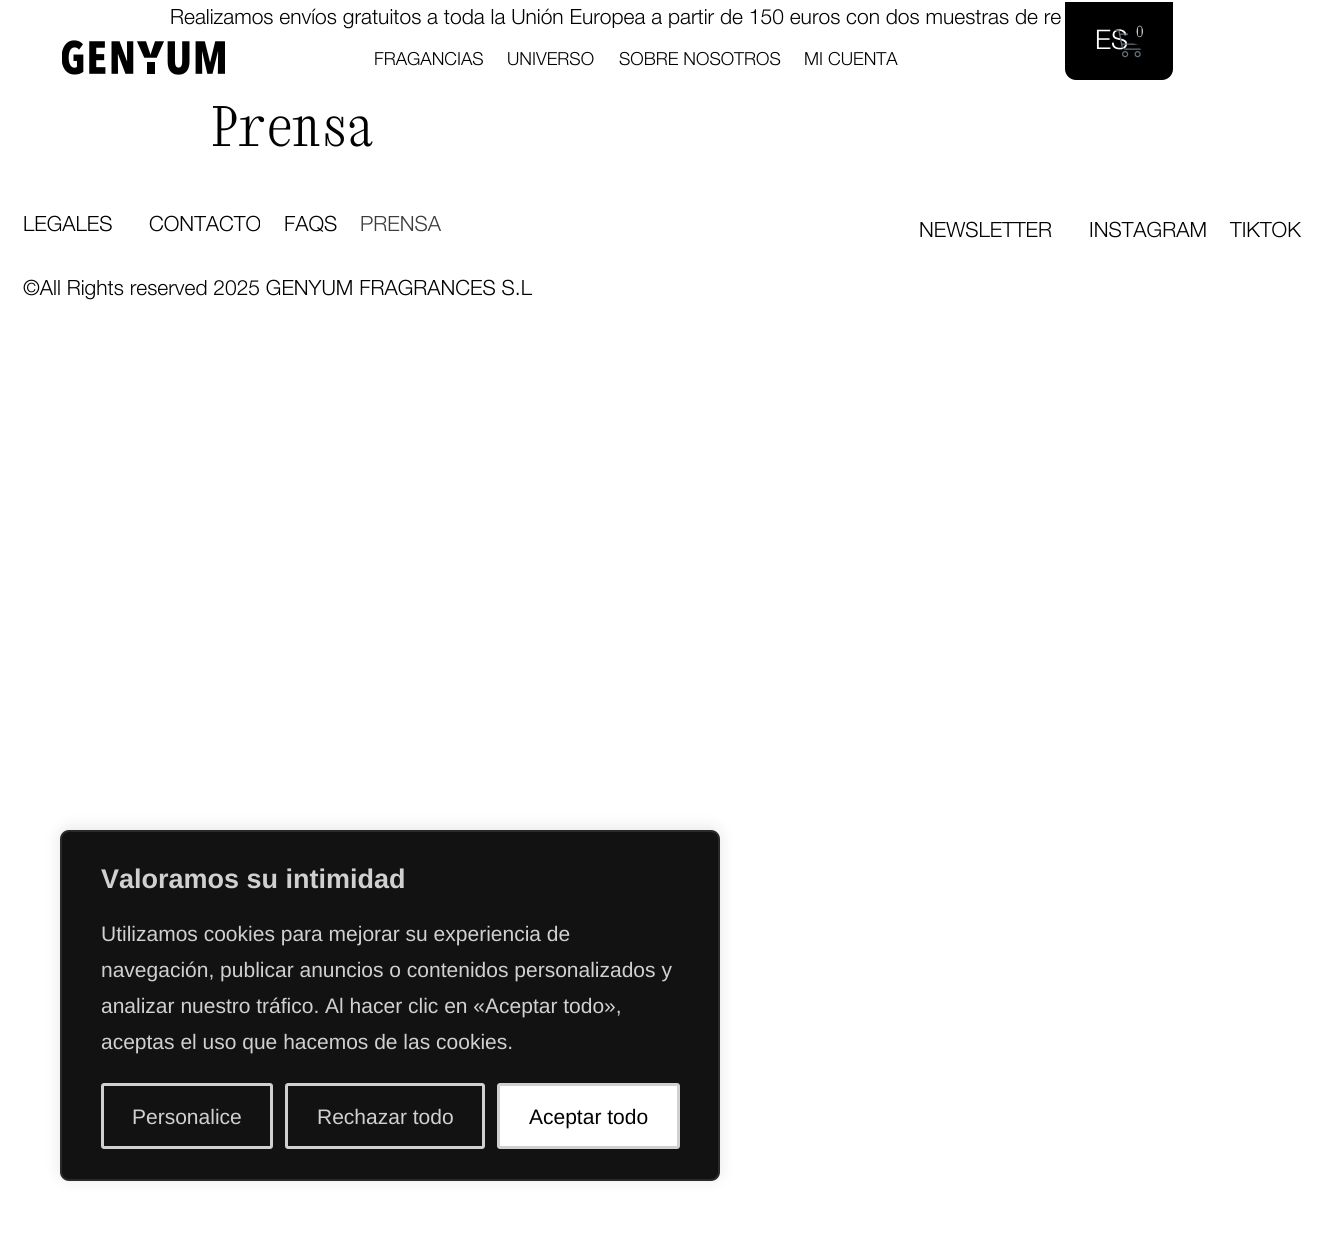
import math
import cairo



def rounded_rect(context, x, y, w, h, r):
    context.new_sub_path()
    for i, (u, v) in enumerate([(x + w - r, y + h - r), (x + r, y + h - r), (x + r, y + r), (x + w - r, y + r)]):
        context.arc(u, v, r, i * math.pi / 2, (i + 1) * math.pi / 2)
    context.close_path()


def draw_shadow(context, x, y, w, h, r, blur, alpha):
    context.push_group_with_content(cairo.Content.ALPHA)
    context.set_operator(cairo.Operator.SOURCE)
    for i in range(15, -16, -2):
        e = blur * i / 6
        if min(w, h) + 2 * e > 0:
            context.set_source_rgba(0, 0, 0, alpha * math.erfc((i - 1) / 8.5) / 2)
            rounded_rect(context, x - e, y - e, w + 2 * e, h + 2 * e, max(0, min(r + e + blur * .6, min(w, h) / 2 + e)))
            context.fill()
    context.mask(context.pop_group())


def draw_image(context, path, x, y, w, h):
    context.save()
    context.set_source_surface(cairo.ImageSurface.create_from_png(path), x, y)
    context.rectangle(x, y, w, h)
    context.fill()
    context.restore()


def draw(context):
    context.set_source_rgb(1, 1, 1)
    context.paint()
    context.set_source_rgb(0, 0, 0)
    context.new_path()
    context.move_to(1065, 2)
    context.line_to(1173, 2)
    context.line_to(1173, 69)
    context.curve_to(1173, 75, 1168, 80, 1162, 80)
    context.line_to(1076, 80)
    context.curve_to(1070, 80, 1065, 75, 1065, 69)
    context.close_path()
    context.fill()
    draw_image(context, "images/2.png", 62, 40, 163, 35)
    context.set_source_rgb(172 / 255, 171 / 255, 171 / 255)
    draw_shadow(context, 60, 828, 660, 351, 9, 7.5, 0.3)
    context.set_source_rgb(18 / 255, 18 / 255, 18 / 255)
    rounded_rect(context, 61, 831, 658, 349, 8)
    context.fill_preserve()
    context.set_source_rgb(42 / 255, 42 / 255, 42 / 255)
    context.stroke()
    rounded_rect(context, 102.5, 1084.5, 169, 63, 1.5)
    context.set_source_rgb(208 / 255, 208 / 255, 208 / 255)
    context.set_line_width(3)
    context.stroke()
    rounded_rect(context, 286.5, 1084.5, 197, 63, 1.5)
    context.stroke()
    context.set_source_rgb(1, 1, 1)
    rounded_rect(context, 498.5, 1084.5, 180, 63, 1.5)
    context.fill_preserve()
    context.set_source_rgb(208 / 255, 208 / 255, 208 / 255)
    context.stroke()
    context.select_font_face("Helvetica Neue Light")
    context.set_font_size(21)
    context.set_source_rgb(0, 0, 0)
    context.move_to(170, 24)
    context.show_text("Realizamos envíos gratuitos a toda la Unión Europea a partir de 150 euros con dos muestras de re")
    context.set_font_size(27)
    context.set_source_rgb(1, 1, 1)
    context.move_to(1095, 49)
    context.show_text("ES")
    draw_image(context, "images/1.png", 1115, 29, 26, 29)
    context.set_source_rgb(0, 0, 0)
    context.arc(1140, 33, 12, 0, 2 * math.pi)
    context.fill()
    context.select_font_face("Xanh Mono")
    context.set_font_size(15)
    context.set_source_rgb(1, 1, 1)
    context.move_to(1136, 37)
    context.show_text("0")
    context.select_font_face("Helvetica Neue Light")
    context.set_font_size(18)
    context.set_source_rgb(0, 0, 0)
    context.move_to(374, 65)
    context.show_text("FRAGANCIAS")
    context.move_to(507, 65)
    context.show_text("UNIVERSO")
    context.move_to(619, 65)
    context.show_text("SOBRE NOSOTROS")
    context.move_to(804, 65)
    context.show_text("MI CUENTA")
    context.select_font_face("Xanh Mono")
    context.set_font_size(54)
    context.move_to(212, 146)
    context.show_text("Prensa")
    context.select_font_face("Helvetica Neue Light")
    context.set_font_size(21)
    context.move_to(23, 231)
    context.show_text("LEGALES")
    context.move_to(149, 231)
    context.show_text("CONTACTO")
    context.move_to(284, 231)
    context.show_text("FAQS")
    context.set_source_rgb(60 / 255, 60 / 255, 60 / 255)
    context.move_to(360, 231)
    context.show_text("PRENSA")
    context.set_source_rgb(0, 0, 0)
    context.move_to(919, 237)
    context.show_text("NEWSLETTER")
    context.move_to(1089, 237)
    context.show_text("INSTAGRAM")
    context.move_to(1230, 237)
    context.show_text("TIKTOK")
    context.move_to(23, 295)
    context.show_text("©All Rights reserved 2025 GENYUM FRAGRANCES S.L")
    context.select_font_face("Liberation Sans", cairo.FontSlant.NORMAL, cairo.FontWeight.BOLD)
    context.set_font_size(27)
    context.set_source_rgb(208 / 255, 208 / 255, 208 / 255)
    context.move_to(101, 888)
    context.show_text("Valoramos su intimidad")
    context.select_font_face("Liberation Sans")
    context.set_font_size(21)
    context.move_to(101, 941)
    context.show_text("Utilizamos cookies para mejorar su experiencia de")
    context.move_to(101, 977)
    context.show_text("navegación, publicar anuncios o contenidos personalizados y")
    context.move_to(101, 1013)
    context.show_text("analizar nuestro tráfico. Al hacer clic en «Aceptar todo»,")
    context.move_to(101, 1049)
    context.show_text("aceptas el uso que hacemos de las cookies.")
    context.move_to(132, 1124)
    context.show_text("Personalice")
    context.move_to(317, 1124)
    context.show_text("Rechazar todo")
    context.set_source_rgb(0, 0, 0)
    context.move_to(529, 1124)
    context.show_text("Aceptar todo")


surface = cairo.ImageSurface(cairo.Format.RGB24, 1323, 1240)
context = cairo.Context(surface)
options = cairo.FontOptions()
options.set_hint_metrics(cairo.HintMetrics.OFF)
options.set_hint_style(cairo.HintStyle.NONE)
context.set_font_options(options)
context.set_miter_limit(4)
draw(context)
surface.write_to_png("out.png")
